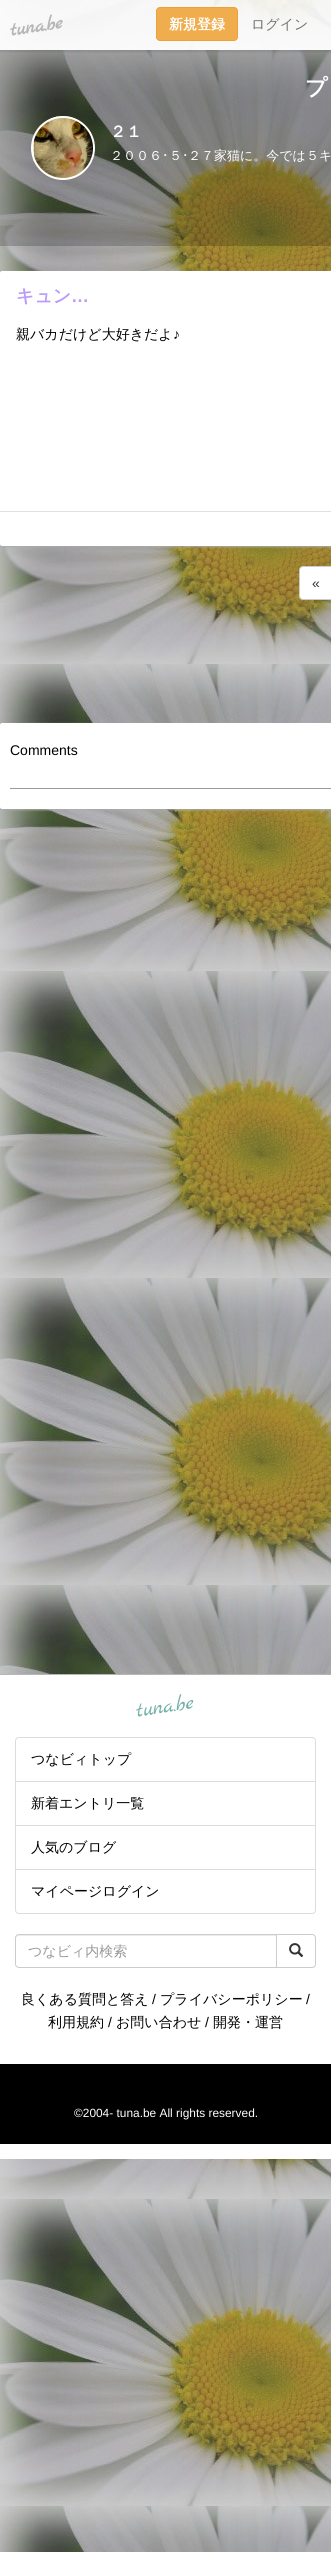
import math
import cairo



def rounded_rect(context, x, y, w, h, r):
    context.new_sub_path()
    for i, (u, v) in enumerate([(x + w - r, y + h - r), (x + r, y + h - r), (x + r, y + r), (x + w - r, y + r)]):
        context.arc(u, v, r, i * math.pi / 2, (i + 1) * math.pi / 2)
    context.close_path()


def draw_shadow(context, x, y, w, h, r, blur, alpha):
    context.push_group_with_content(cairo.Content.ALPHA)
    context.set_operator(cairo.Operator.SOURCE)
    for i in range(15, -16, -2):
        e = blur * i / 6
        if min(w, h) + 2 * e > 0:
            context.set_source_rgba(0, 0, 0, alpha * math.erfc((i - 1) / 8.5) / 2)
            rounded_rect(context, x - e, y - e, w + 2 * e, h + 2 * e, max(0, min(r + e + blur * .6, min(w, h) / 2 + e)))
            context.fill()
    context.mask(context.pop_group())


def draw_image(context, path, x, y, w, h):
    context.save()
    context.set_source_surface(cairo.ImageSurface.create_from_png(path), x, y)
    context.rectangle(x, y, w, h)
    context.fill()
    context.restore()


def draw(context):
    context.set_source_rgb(1, 1, 1)
    context.paint()
    draw_image(context, "images/1.png", 0, 0, 331, 2552)
    context.set_source_rgba(0, 0, 0, 0.2)
    context.rectangle(0, 50, 331, 196)
    context.fill()
    context.save()
    context.rectangle(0, 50, 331, 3)
    context.clip()
    context.set_source_rgb(0, 0, 0)
    draw_shadow(context, 0, 2, 331, 50, 0, 1, 0.1)
    context.restore()
    context.set_source_rgba(1, 1, 1, 0.9)
    context.rectangle(0, 0, 331, 50)
    context.fill()
    context.set_source_rgb(240 / 255, 173 / 255, 78 / 255)
    rounded_rect(context, 156.5, 7.5, 81, 33, 3.5)
    context.fill_preserve()
    context.set_source_rgb(238 / 255, 162 / 255, 54 / 255)
    context.set_line_width(1)
    context.stroke()
    draw_image(context, "images/2.png", 33, 116, 60, 64)
    context.arc(63, 148, 31, 0, 2 * math.pi)
    context.set_source_rgb(1, 1, 1)
    context.set_line_width(2)
    context.stroke()
    context.set_source_rgb(170 / 255, 170 / 255, 170 / 255)
    draw_shadow(context, 0, 272, 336, 275, 2, 1, 1)
    context.set_source_rgb(1, 1, 1)
    rounded_rect(context, 0, 271, 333, 275, 2)
    context.fill()
    context.set_source_rgb(224 / 255, 224 / 255, 224 / 255)
    context.rectangle(0, 511, 331, 1)
    context.fill()
    context.set_source_rgb(1, 1, 1)
    rounded_rect(context, 299.5, 566.5, 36, 33, 3.5)
    context.fill_preserve()
    context.set_source_rgb(204 / 255, 204 / 255, 204 / 255)
    context.set_line_width(1)
    context.stroke()
    context.set_source_rgb(170 / 255, 170 / 255, 170 / 255)
    draw_shadow(context, 0, 724, 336, 86, 2, 1, 1)
    context.set_source_rgb(1, 1, 1)
    rounded_rect(context, 0, 723, 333, 86, 2)
    context.fill()
    context.set_source_rgb(153 / 255, 153 / 255, 153 / 255)
    context.rectangle(10, 788, 321, 1)
    context.fill()
    context.set_source_rgb(1, 1, 1)
    context.rectangle(0, 1675, 331, 484)
    context.fill()
    context.set_source_rgb(182 / 255, 182 / 255, 182 / 255)
    context.rectangle(0, 1674, 331, 1)
    context.fill()
    context.new_path()
    context.move_to(19, 1737.5)
    context.line_to(312, 1737.5)
    context.curve_to(314, 1737.5, 315.5, 1739, 315.5, 1741)
    context.line_to(315.5, 1781.5)
    context.line_to(15.5, 1781.5)
    context.line_to(15.5, 1741)
    context.curve_to(15.5, 1739, 17, 1737.5, 19, 1737.5)
    context.close_path()
    context.set_source_rgb(221 / 255, 221 / 255, 221 / 255)
    context.stroke()
    context.rectangle(15.5, 1781.5, 300, 44)
    context.stroke()
    context.rectangle(15.5, 1825.5, 300, 44)
    context.stroke()
    context.set_source_rgb(1, 1, 1)
    context.new_path()
    context.move_to(15.5, 1869.5)
    context.line_to(315.5, 1869.5)
    context.line_to(315.5, 1910)
    context.curve_to(315.5, 1912, 314, 1913.5, 312, 1913.5)
    context.line_to(19, 1913.5)
    context.curve_to(17, 1913.5, 15.5, 1912, 15.5, 1910)
    context.close_path()
    context.fill_preserve()
    context.set_source_rgb(221 / 255, 221 / 255, 221 / 255)
    context.stroke()
    context.set_source_rgb(236 / 255, 236 / 255, 236 / 255)
    context.new_path()
    context.move_to(19, 1936)
    context.line_to(276, 1936)
    context.line_to(276, 1935)
    context.line_to(19, 1935)
    context.curve_to(17, 1935, 16, 1936, 16, 1938)
    context.line_to(16, 1939)
    context.curve_to(16, 1937, 17, 1936, 19, 1936)
    context.close_path()
    context.fill()
    context.new_path()
    context.move_to(19, 1934.5)
    context.line_to(276.5, 1934.5)
    context.line_to(276.5, 1967.5)
    context.line_to(19, 1967.5)
    context.curve_to(17, 1967.5, 15.5, 1966, 15.5, 1964)
    context.line_to(15.5, 1938)
    context.curve_to(15.5, 1936, 17, 1934.5, 19, 1934.5)
    context.close_path()
    context.set_source_rgb(204 / 255, 204 / 255, 204 / 255)
    context.stroke()
    context.set_source_rgb(1, 1, 1)
    context.new_path()
    context.move_to(276.5, 1934.5)
    context.line_to(312, 1934.5)
    context.curve_to(314, 1934.5, 315.5, 1936, 315.5, 1938)
    context.line_to(315.5, 1964)
    context.curve_to(315.5, 1966, 314, 1967.5, 312, 1967.5)
    context.line_to(276.5, 1967.5)
    context.close_path()
    context.fill_preserve()
    context.set_source_rgb(204 / 255, 204 / 255, 204 / 255)
    context.stroke()
    draw_image(context, "images/3.png", 289, 1943, 15, 14)
    context.set_source_rgb(0, 0, 0)
    context.rectangle(0, 2064, 331, 80)
    context.fill()
    context.select_font_face("Marck Script", cairo.FontSlant.NORMAL, cairo.FontWeight.BOLD)
    context.set_font_size(20)
    context.set_source_rgb(182 / 255, 182 / 255, 182 / 255)
    context.save()
    context.translate(11, 36)
    context.rotate(-9 * math.pi / 180)
    context.move_to(0, 0)
    context.show_text("tuna.be")
    context.restore()
    context.select_font_face("WenQuanYi Zen Hei", cairo.FontSlant.NORMAL, cairo.FontWeight.BOLD)
    context.set_font_size(14)
    context.set_source_rgb(1, 1, 1)
    context.move_to(169, 29)
    context.show_text("新規登録")
    context.select_font_face("WenQuanYi Zen Hei Medium")
    context.set_source_rgb(114 / 255, 114 / 255, 114 / 255)
    context.move_to(251, 29)
    context.show_text("ログイン")
    context.select_font_face("WenQuanYi Zen Hei", cairo.FontSlant.NORMAL, cairo.FontWeight.BOLD)
    context.set_font_size(22)
    context.set_source_rgb(1, 1, 1)
    context.move_to(305, 95)
    context.show_text("プ")
    context.set_font_size(16)
    context.move_to(110, 137)
    context.show_text("２１")
    context.select_font_face("WenQuanYi Zen Hei Medium")
    context.set_font_size(13)
    context.move_to(110, 160)
    context.show_text("２００６")
    context.select_font_face("IPAPGothic")
    context.move_to(162, 160)
    context.show_text("･")
    context.select_font_face("WenQuanYi Zen Hei Medium")
    context.move_to(169, 160)
    context.show_text("５")
    context.select_font_face("IPAPGothic")
    context.move_to(182, 160)
    context.show_text("･")
    context.select_font_face("WenQuanYi Zen Hei Medium")
    context.move_to(188, 160)
    context.show_text("２７家猫に。今では５キ")
    context.select_font_face("WenQuanYi Zen Hei", cairo.FontSlant.NORMAL, cairo.FontWeight.BOLD)
    context.set_font_size(18)
    context.set_source_rgb(187 / 255, 154 / 255, 252 / 255)
    context.move_to(16, 302)
    context.show_text("キュン")
    context.select_font_face("Liberation Sans", cairo.FontSlant.NORMAL, cairo.FontWeight.BOLD)
    context.move_to(71, 302)
    context.show_text("…")
    context.select_font_face("WenQuanYi Zen Hei Medium")
    context.set_font_size(14)
    context.set_source_rgb(0, 0, 0)
    context.move_to(16, 339)
    context.show_text("親バカだけど大好きだよ")
    context.select_font_face("Liberation Sans")
    context.move_to(173, 339)
    context.show_text("♪")
    context.set_source_rgb(51 / 255, 51 / 255, 51 / 255)
    context.move_to(312, 588)
    context.show_text("«")
    context.set_source_rgb(0, 0, 0)
    context.move_to(10, 755)
    context.show_text("Comments")
    context.select_font_face("Marck Script")
    context.set_font_size(22)
    context.set_source_rgb(117 / 255, 177 / 255, 169 / 255)
    context.save()
    context.translate(137, 1717)
    context.rotate(-9 * math.pi / 180)
    context.move_to(0, 0)
    context.show_text("tuna.be")
    context.restore()
    context.select_font_face("WenQuanYi Zen Hei Medium")
    context.set_font_size(14)
    context.set_source_rgb(0, 0, 0)
    context.move_to(31, 1764)
    context.show_text("つなビィトップ")
    context.move_to(31, 1808)
    context.show_text("新着エントリ一覧")
    context.move_to(31, 1852)
    context.show_text("人気のブログ")
    context.move_to(31, 1896)
    context.show_text("マイページログイン")
    context.set_source_rgb(153 / 255, 153 / 255, 153 / 255)
    context.move_to(28, 1956)
    context.show_text("つなビィ内検索")
    context.set_source_rgb(0, 0, 0)
    context.move_to(21, 2004)
    context.show_text("良くある質問と答え")
    context.select_font_face("Liberation Sans")
    context.move_to(152, 2004)
    context.show_text("/")
    context.select_font_face("WenQuanYi Zen Hei Medium")
    context.move_to(160, 2004)
    context.show_text("プライバシーポリシー")
    context.select_font_face("Liberation Sans")
    context.move_to(306, 2004)
    context.show_text("/")
    context.select_font_face("WenQuanYi Zen Hei Medium")
    context.move_to(48, 2027)
    context.show_text("利用規約")
    context.select_font_face("Liberation Sans")
    context.move_to(108, 2027)
    context.show_text("/")
    context.select_font_face("WenQuanYi Zen Hei Medium")
    context.move_to(116, 2027)
    context.show_text("お問い合わせ")
    context.select_font_face("Liberation Sans")
    context.move_to(205, 2027)
    context.show_text("/")
    context.select_font_face("WenQuanYi Zen Hei Medium")
    context.move_to(213, 2027)
    context.show_text("開発・運営")
    context.select_font_face("Liberation Sans")
    context.set_font_size(11.9)
    context.set_source_rgb(1, 1, 1)
    context.move_to(74, 2117)
    context.show_text("©2004- tuna.be All rights reserved.")


surface = cairo.ImageSurface(cairo.Format.RGB24, 331, 2552)
context = cairo.Context(surface)
options = cairo.FontOptions()
options.set_hint_metrics(cairo.HintMetrics.OFF)
options.set_hint_style(cairo.HintStyle.NONE)
context.set_font_options(options)
context.set_miter_limit(4)
draw(context)
surface.write_to_png("out.png")
